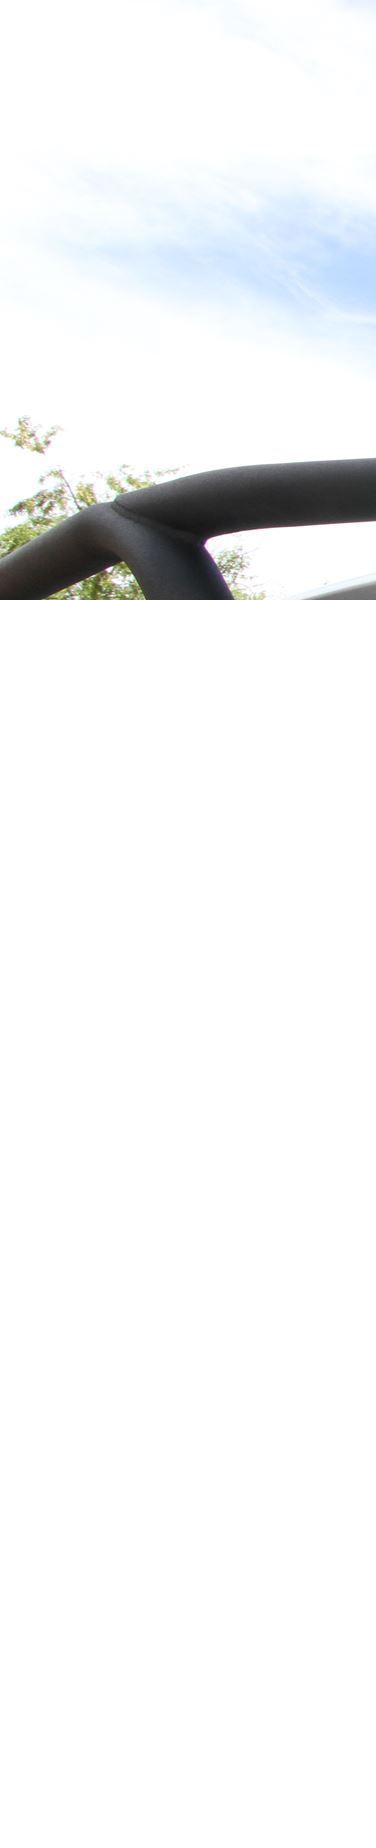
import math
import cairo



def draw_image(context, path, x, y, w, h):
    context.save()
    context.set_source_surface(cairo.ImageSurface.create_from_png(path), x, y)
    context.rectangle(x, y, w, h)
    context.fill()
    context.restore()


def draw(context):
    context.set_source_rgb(1, 1, 1)
    context.paint()
    draw_image(context, "images/1.png", 0, 0, 376, 600)


surface = cairo.ImageSurface(cairo.Format.RGB24, 376, 1848)
context = cairo.Context(surface)
options = cairo.FontOptions()
options.set_hint_metrics(cairo.HintMetrics.OFF)
options.set_hint_style(cairo.HintStyle.NONE)
context.set_font_options(options)
context.set_miter_limit(4)
draw(context)
surface.write_to_png("out.png")
